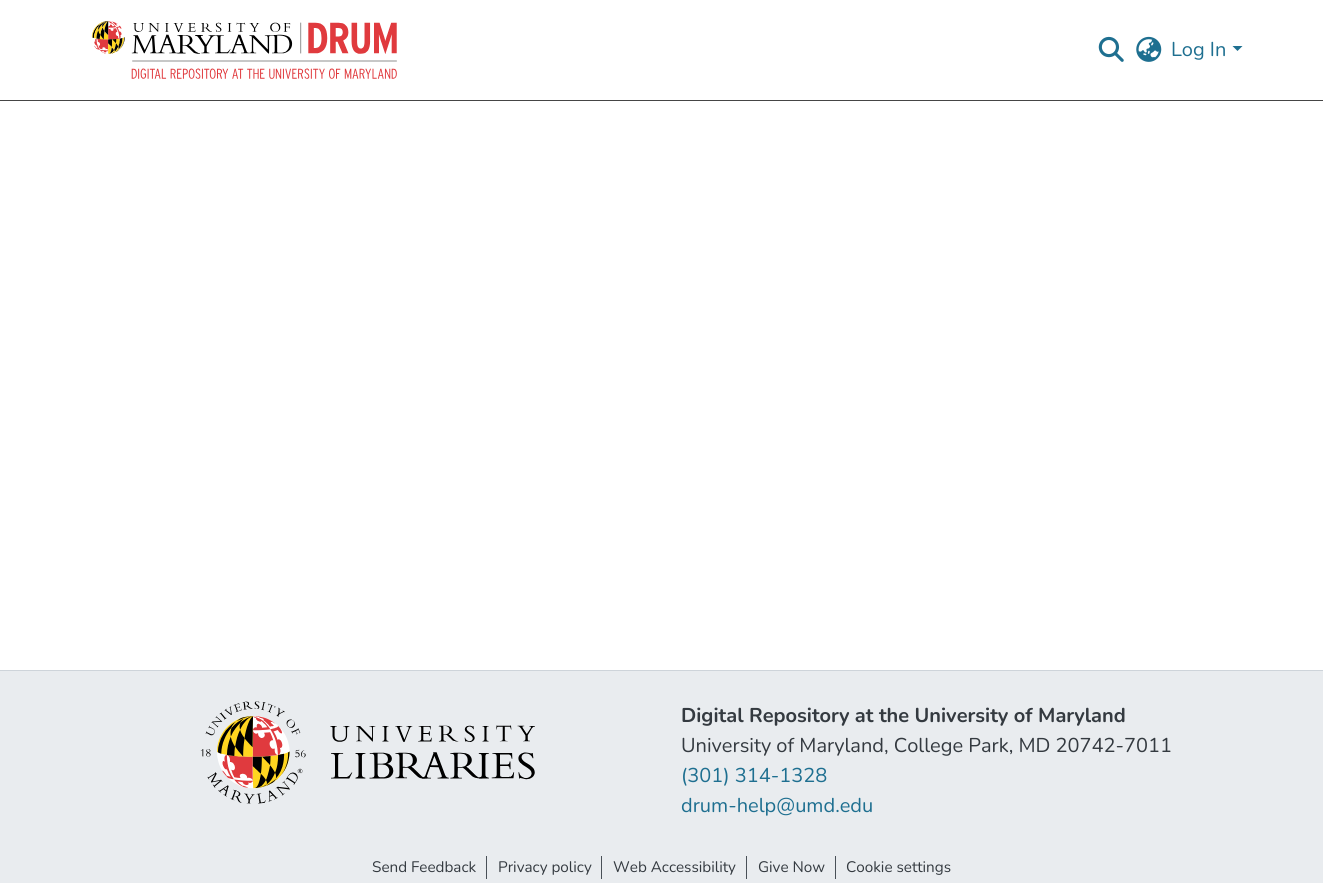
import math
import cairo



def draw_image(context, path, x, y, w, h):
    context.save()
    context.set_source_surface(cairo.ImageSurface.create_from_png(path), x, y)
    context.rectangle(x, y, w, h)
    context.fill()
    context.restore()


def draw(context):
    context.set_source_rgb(1, 1, 1)
    context.paint()
    context.set_source_rgb(69 / 255, 69 / 255, 69 / 255)
    context.rectangle(0, 100, 1323, 1)
    context.fill()
    draw_image(context, "images/1.png", 91, 20, 306, 59)
    draw_image(context, "images/2.png", 1098, 36, 26, 26)
    draw_image(context, "images/3.png", 1136, 36, 26, 26)
    context.set_source_rgb(30 / 255, 111 / 255, 144 / 255)
    context.new_path()
    context.move_to(1232.5, 46)
    context.line_to(1242.5, 46)
    context.line_to(1237.5, 51)
    context.close_path()
    context.fill()
    context.set_source_rgb(233 / 255, 236 / 255, 239 / 255)
    context.rectangle(0, 671, 1323, 212)
    context.fill()
    context.set_source_rgb(206 / 255, 212 / 255, 218 / 255)
    context.rectangle(0, 670, 1323, 1)
    context.fill()
    draw_image(context, "images/4.png", 200, 701, 335, 103)
    context.set_source_rgb(73 / 255, 80 / 255, 87 / 255)
    context.rectangle(486, 856, 1, 23)
    context.fill()
    context.rectangle(601, 856, 1, 23)
    context.fill()
    context.rectangle(746, 856, 1, 23)
    context.fill()
    context.rectangle(835, 856, 1, 23)
    context.fill()
    context.select_font_face("Nunito")
    context.set_font_size(20)
    context.set_source_rgb(30 / 255, 111 / 255, 144 / 255)
    context.move_to(1171, 56)
    context.show_text("Log In")
    context.select_font_face("Nunito", cairo.FontSlant.NORMAL, cairo.FontWeight.BOLD)
    context.set_source_rgb(52 / 255, 58 / 255, 64 / 255)
    context.move_to(681, 722)
    context.show_text("Digital Repository at the University of Maryland")
    context.select_font_face("Nunito")
    context.move_to(681, 752)
    context.show_text("University of Maryland, College Park, MD 20742-7011")
    context.set_source_rgb(30 / 255, 111 / 255, 144 / 255)
    context.move_to(681, 782)
    context.show_text("(301) 314-1328")
    context.move_to(681, 812)
    context.show_text("drum-help@umd.edu")
    context.set_font_size(15.25)
    context.set_source_rgb(52 / 255, 58 / 255, 64 / 255)
    context.move_to(372, 872)
    context.show_text("Send Feedback")
    context.move_to(498, 872)
    context.show_text("Privacy policy")
    context.move_to(613, 872)
    context.show_text("Web Accessibility")
    context.move_to(758, 872)
    context.show_text("Give Now")
    context.move_to(846, 872)
    context.show_text("Cookie settings")


surface = cairo.ImageSurface(cairo.Format.RGB24, 1323, 883)
context = cairo.Context(surface)
options = cairo.FontOptions()
options.set_hint_metrics(cairo.HintMetrics.OFF)
options.set_hint_style(cairo.HintStyle.NONE)
context.set_font_options(options)
context.set_miter_limit(4)
draw(context)
surface.write_to_png("out.png")
